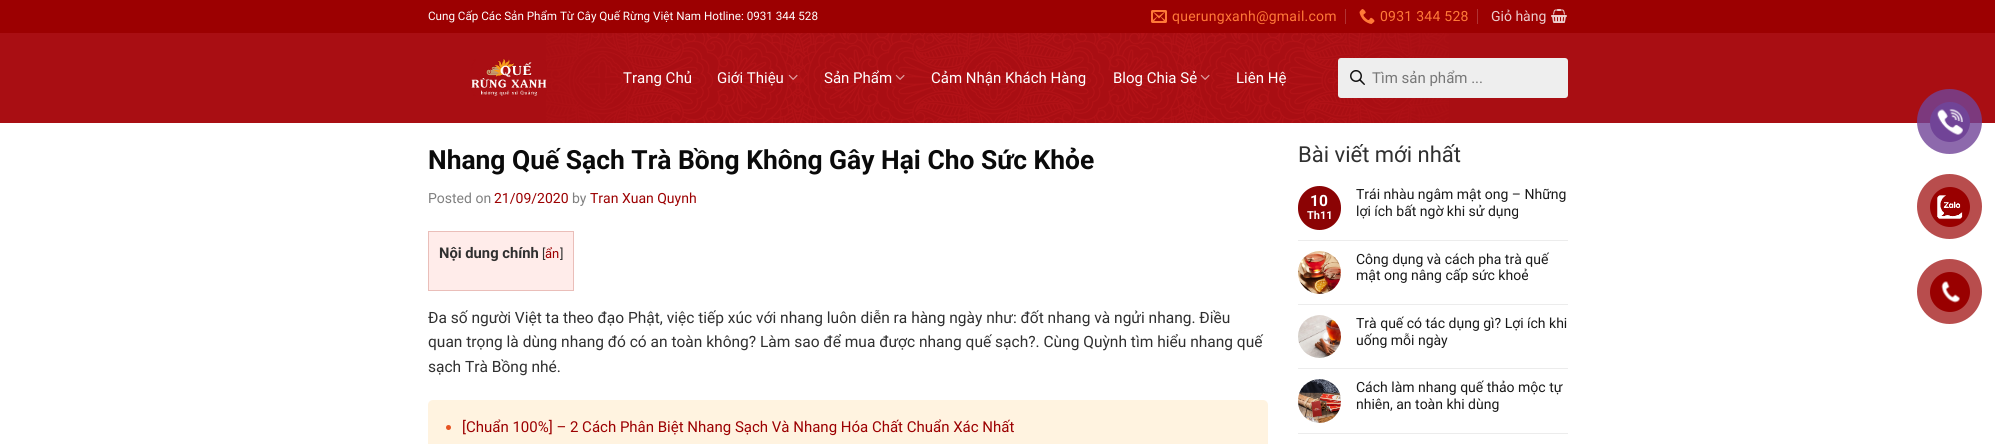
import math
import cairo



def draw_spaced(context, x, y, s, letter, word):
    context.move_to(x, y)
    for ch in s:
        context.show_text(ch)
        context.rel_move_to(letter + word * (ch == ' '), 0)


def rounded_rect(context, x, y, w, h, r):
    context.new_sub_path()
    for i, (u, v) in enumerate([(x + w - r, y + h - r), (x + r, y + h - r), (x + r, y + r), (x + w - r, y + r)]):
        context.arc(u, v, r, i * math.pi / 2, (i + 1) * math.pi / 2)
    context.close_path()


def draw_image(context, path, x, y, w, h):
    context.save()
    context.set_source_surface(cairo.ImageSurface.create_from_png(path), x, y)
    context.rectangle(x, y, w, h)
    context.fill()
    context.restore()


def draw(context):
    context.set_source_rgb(1, 1, 1)
    context.paint()
    context.set_source_rgb(169 / 255, 14 / 255, 19 / 255)
    context.rectangle(0, 33, 1995, 90)
    context.fill()
    context.set_source_rgb(156 / 255, 0, 1 / 255)
    context.rectangle(0, 0, 1995, 33)
    context.fill()
    draw_image(context, "images/1.png", 1151, 10, 16, 13)
    context.set_source_rgb(176 / 255, 51 / 255, 52 / 255)
    context.rectangle(1345, 9, 1, 15)
    context.fill()
    draw_image(context, "images/2.png", 1359, 9, 16, 15)
    context.rectangle(1477, 9, 1, 15)
    context.fill()
    draw_image(context, "images/3.png", 1551, 9, 16, 14)
    draw_image(context, "images/4.png", 546, 33, 903, 90)
    draw_image(context, "images/5.png", 471, 59, 76, 37)
    draw_image(context, "images/6.png", 788, 74, 10, 6)
    draw_image(context, "images/7.png", 895, 74, 10, 6)
    draw_image(context, "images/8.png", 1200, 74, 10, 6)
    context.set_source_rgb(238 / 255, 238 / 255, 238 / 255)
    rounded_rect(context, 1338, 58, 230, 40, 3)
    context.fill()
    draw_image(context, "images/9.png", 1350, 70, 15, 15)
    context.set_source_rgb(1, 236 / 255, 234 / 255)
    context.rectangle(428.5, 231.5, 145, 59)
    context.fill_preserve()
    context.set_source_rgb(234 / 255, 190 / 255, 185 / 255)
    context.set_line_width(1)
    context.stroke()
    context.set_source_rgb(1, 243 / 255, 224 / 255)
    rounded_rect(context, 428, 400, 840, 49, 5)
    context.fill()
    context.set_source_rgb(230 / 255, 83 / 255, 34 / 255)
    context.arc(448.5, 427.5, 2.5, 0, 2 * math.pi)
    context.fill()
    context.set_source_rgb(139 / 255, 3 / 255, 4 / 255)
    rounded_rect(context, 1298, 186, 43, 44, 21.5)
    context.fill()
    context.set_source_rgb(236 / 255, 236 / 255, 236 / 255)
    context.rectangle(1298, 240, 270, 1)
    context.fill()
    draw_image(context, "images/10.png", 1298, 251, 43, 43)
    context.rectangle(1298, 304, 270, 1)
    context.fill()
    draw_image(context, "images/11.png", 1298, 315, 43, 43)
    context.rectangle(1298, 368, 270, 1)
    context.fill()
    draw_image(context, "images/12.png", 1298, 379, 43, 44)
    context.rectangle(1298, 433, 270, 1)
    context.fill()
    context.set_source_rgba(113 / 255, 68 / 255, 151 / 255, 0.8)
    context.arc(1949.5, 121.5, 32.5, 0, 2 * math.pi)
    context.fill()
    context.set_source_rgb(113 / 255, 68 / 255, 151 / 255)
    context.arc(1950, 122, 20, 0, 2 * math.pi)
    context.fill()
    draw_image(context, "images/13.png", 1937, 109, 26, 26)
    context.set_source_rgb(184 / 255, 77 / 255, 77 / 255)
    context.arc(1949.5, 206.5, 32.5, 0, 2 * math.pi)
    context.fill()
    context.set_source_rgb(153 / 255, 0, 0)
    context.arc(1950, 207, 20, 0, 2 * math.pi)
    context.fill()
    draw_image(context, "images/14.png", 1937, 195, 26, 24)
    context.set_source_rgb(184 / 255, 77 / 255, 77 / 255)
    context.arc(1949.5, 291.5, 32.5, 0, 2 * math.pi)
    context.fill()
    context.set_source_rgb(153 / 255, 0, 0)
    context.arc(1950, 292, 20, 0, 2 * math.pi)
    context.fill()
    draw_image(context, "images/15.png", 1941, 281, 19, 22)
    context.select_font_face("Roboto")
    context.set_font_size(11.65)
    context.set_source_rgb(1, 1, 1)
    context.move_to(428, 20)
    context.show_text("Cung Cấp Các Sản Phẩm Từ Cây Quế Rừng Việt Nam Hotline: 0931 344 528")
    context.set_font_size(14)
    context.set_source_rgb(1, 121 / 255, 56 / 255)
    draw_spaced(context, 1172, 21, "querungxanh@gmail.com", 0.25, 0)
    draw_spaced(context, 1380, 21, "0931 344 528", 0.25, 0)
    context.set_source_rgb(235 / 255, 204 / 255, 204 / 255)
    context.move_to(1491, 21)
    context.show_text("Giỏ hàng")
    context.set_font_size(15)
    context.set_source_rgb(1, 1, 1)
    context.move_to(623, 83)
    context.show_text("Trang Chủ")
    context.move_to(717, 83)
    context.show_text("Giới Thiệu")
    context.move_to(824, 83)
    context.show_text("Sản Phẩm")
    context.move_to(931, 83)
    context.show_text("Cảm Nhận Khách Hàng")
    context.move_to(1113, 83)
    context.show_text("Blog Chia Sẻ")
    context.move_to(1236, 83)
    context.show_text("Liên Hệ")
    context.set_source_rgb(119 / 255, 119 / 255, 119 / 255)
    context.move_to(1372, 83)
    context.show_text("Tìm sản phẩm ...")
    context.select_font_face("Roboto", cairo.FontSlant.NORMAL, cairo.FontWeight.BOLD)
    context.set_font_size(26.4)
    context.set_source_rgb(10 / 255, 10 / 255, 10 / 255)
    context.move_to(428, 169)
    context.show_text("Nhang Quế Sạch Trà Bồng Không Gây Hại Cho Sức Khỏe")
    context.select_font_face("Roboto")
    context.set_font_size(14)
    context.set_source_rgb(128 / 255, 128 / 255, 128 / 255)
    context.move_to(428, 203)
    context.show_text("Posted on")
    context.set_source_rgb(156 / 255, 0, 1 / 255)
    context.move_to(494, 203)
    context.show_text("21/09/2020")
    context.set_source_rgb(128 / 255, 128 / 255, 128 / 255)
    context.move_to(572, 203)
    context.show_text("by")
    context.set_source_rgb(156 / 255, 0, 1 / 255)
    context.move_to(590, 203)
    context.show_text("Tran Xuan Quynh")
    context.select_font_face("Roboto", cairo.FontSlant.NORMAL, cairo.FontWeight.BOLD)
    context.set_font_size(14.75)
    context.set_source_rgb(48 / 255, 48 / 255, 48 / 255)
    context.move_to(439, 258)
    context.show_text("Nội dung chính")
    context.select_font_face("Roboto")
    context.set_font_size(13)
    context.move_to(542, 258)
    context.show_text("[")
    context.set_source_rgb(156 / 255, 0, 1 / 255)
    context.move_to(545, 258)
    context.show_text("ẩn")
    context.set_source_rgb(48 / 255, 48 / 255, 48 / 255)
    context.move_to(560, 258)
    context.show_text("]")
    context.set_font_size(15.52)
    context.move_to(428, 323)
    context.show_text("Đa số người Việt ta theo đạo Phật, việc tiếp xúc với nhang luôn diễn ra hàng ngày như: đốt nhang và ngửi nhang. Điều")
    context.move_to(428, 347)
    context.show_text("quan trọng là dùng nhang đó có an toàn không? Làm sao để mua được nhang quế sạch?. Cùng Quỳnh tìm hiểu nhang quế")
    context.move_to(428, 372)
    context.show_text("sạch Trà Bồng nhé.")
    context.set_font_size(15)
    context.set_source_rgb(156 / 255, 0, 1 / 255)
    context.move_to(462, 432)
    context.show_text("[Chuẩn 100%] – 2 Cách Phân Biệt Nhang Sạch Và Nhang Hóa Chất Chuẩn Xác Nhất")
    context.set_font_size(22)
    context.set_source_rgb(48 / 255, 48 / 255, 48 / 255)
    context.move_to(1298, 162)
    context.show_text("Bài viết mới nhất")
    context.select_font_face("Roboto", cairo.FontSlant.NORMAL, cairo.FontWeight.BOLD)
    context.set_font_size(15.52)
    context.set_source_rgb(1, 1, 1)
    context.move_to(1310, 206)
    context.show_text("10")
    context.set_font_size(11)
    context.move_to(1307, 219)
    context.show_text("Th11")
    context.select_font_face("Roboto")
    context.set_font_size(14)
    context.set_source_rgb(25 / 255, 25 / 255, 25 / 255)
    context.move_to(1356, 199)
    context.show_text("Trái nhàu ngâm mật ong – Những")
    context.move_to(1356, 216)
    context.show_text("lợi ích bất ngờ khi sử dụng")
    context.move_to(1356, 264)
    context.show_text("Công dụng và cách pha trà quế")
    context.move_to(1356, 280)
    context.show_text("mật ong nâng cấp sức khoẻ")
    context.move_to(1356, 328)
    context.show_text("Trà quế có tác dụng gì? Lợi ích khi")
    context.move_to(1356, 345)
    context.show_text("uống mỗi ngày")
    context.move_to(1356, 392)
    context.show_text("Cách làm nhang quế thảo mộc tự")
    context.move_to(1356, 409)
    context.show_text("nhiên, an toàn khi dùng")


surface = cairo.ImageSurface(cairo.Format.RGB24, 1995, 444)
context = cairo.Context(surface)
options = cairo.FontOptions()
options.set_hint_metrics(cairo.HintMetrics.OFF)
options.set_hint_style(cairo.HintStyle.NONE)
context.set_font_options(options)
context.set_miter_limit(4)
draw(context)
surface.write_to_png("out.png")
